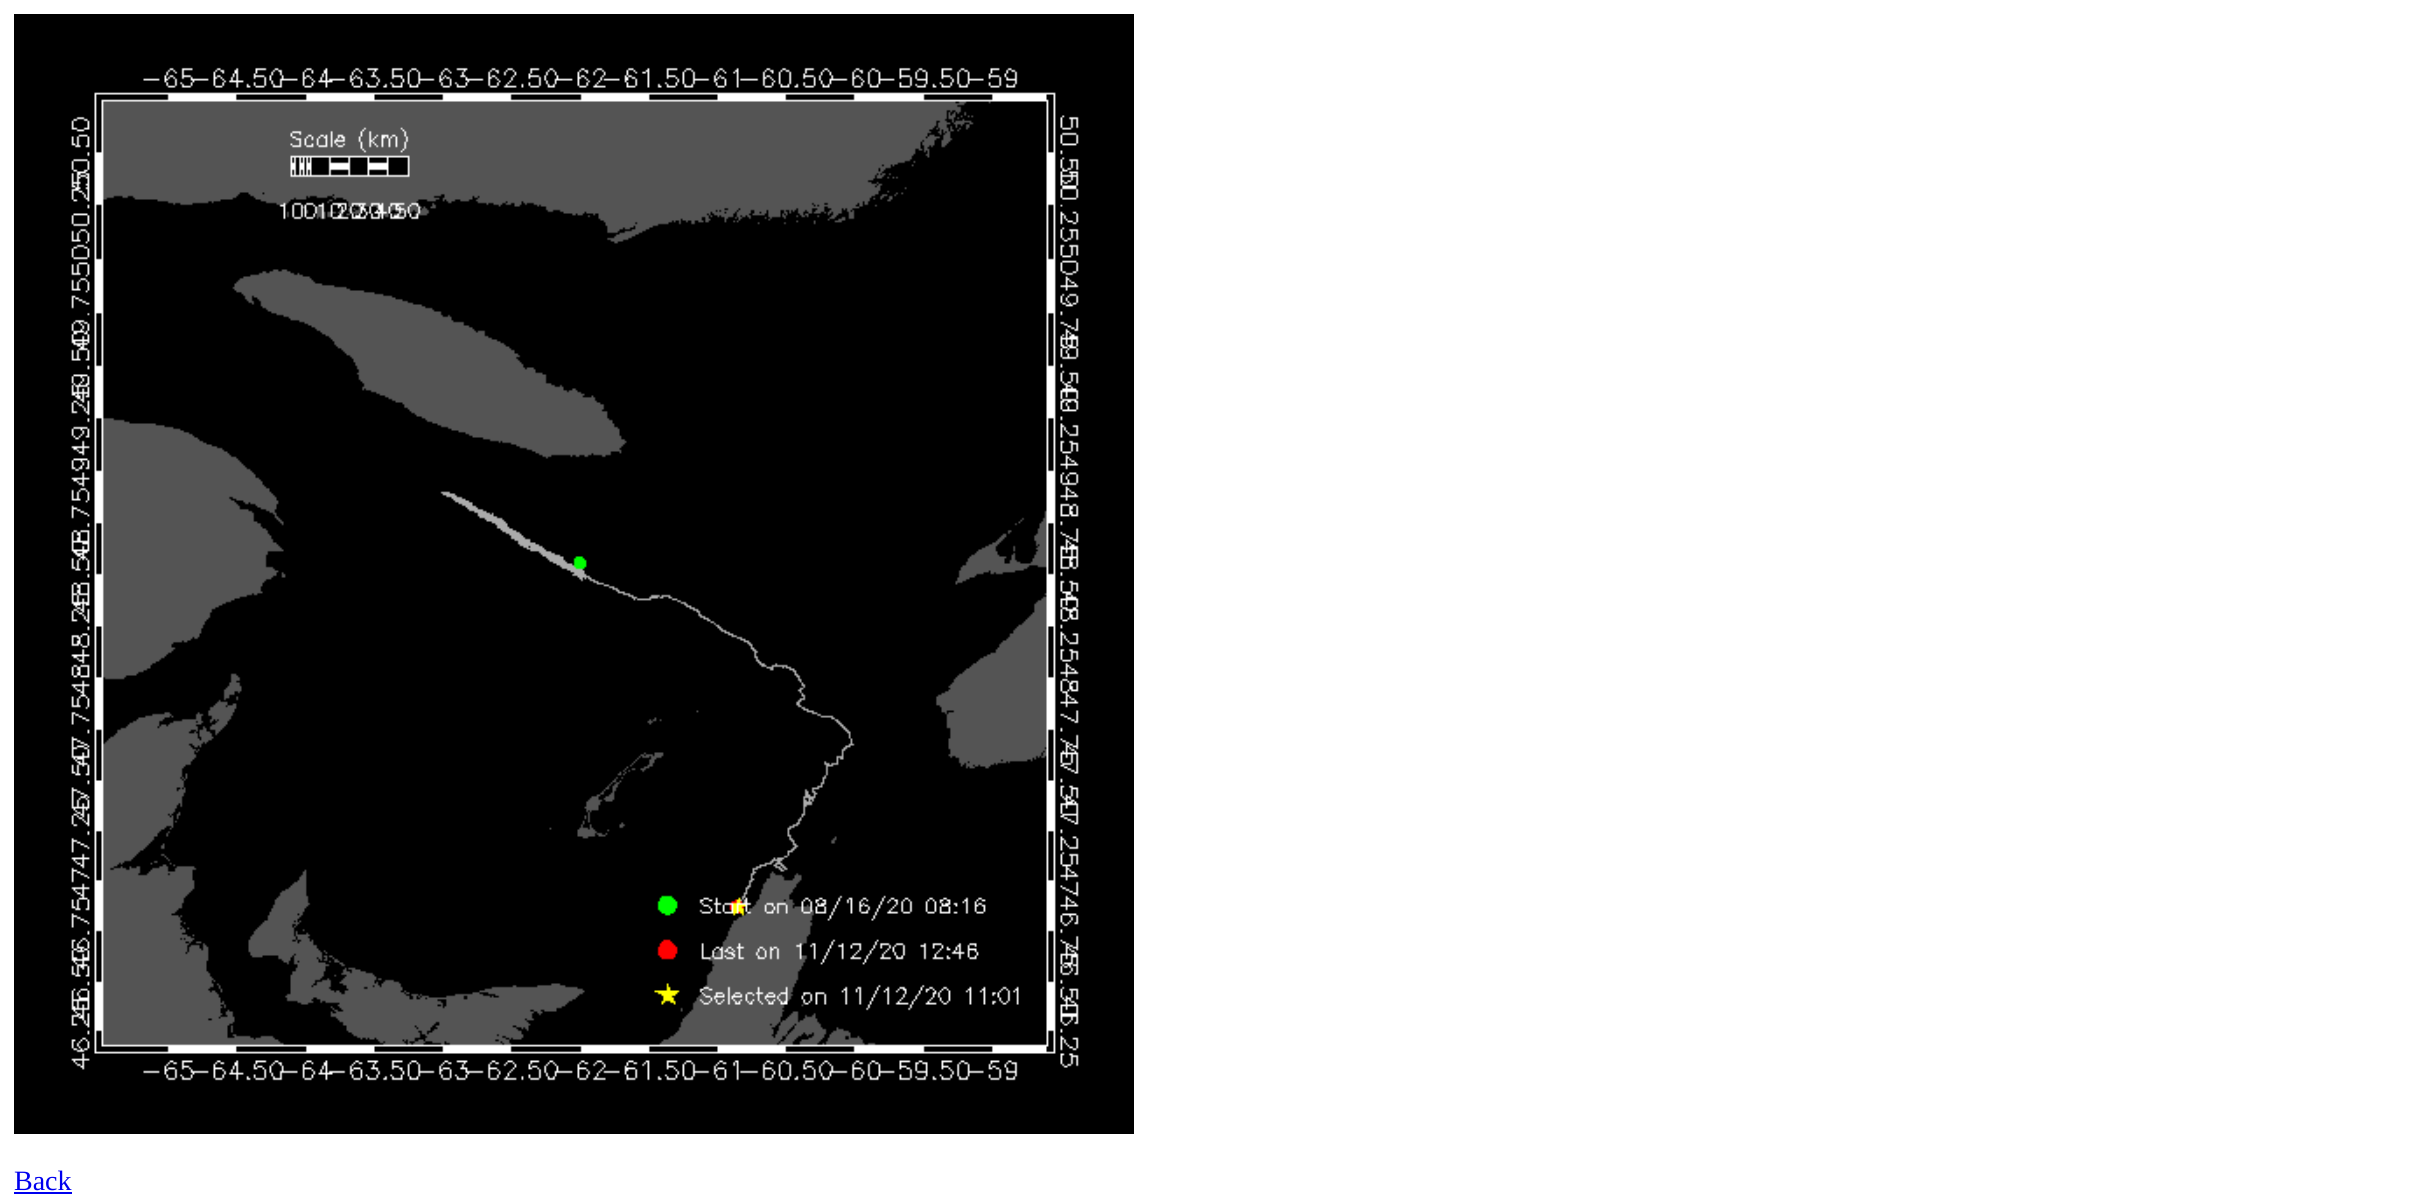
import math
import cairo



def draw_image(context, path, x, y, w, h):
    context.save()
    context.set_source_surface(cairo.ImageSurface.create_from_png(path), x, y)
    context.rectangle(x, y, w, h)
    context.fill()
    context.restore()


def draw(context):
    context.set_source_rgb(1, 1, 1)
    context.paint()
    draw_image(context, "images/1.png", 14, 14, 1120, 1120)
    context.set_source_rgb(0, 0, 238 / 255)
    context.rectangle(14, 1192, 58, 2)
    context.fill()
    context.select_font_face("Liberation Serif")
    context.set_font_size(28)
    context.move_to(14, 1190)
    context.show_text("Back")


surface = cairo.ImageSurface(cairo.Format.RGB24, 2411, 1200)
context = cairo.Context(surface)
options = cairo.FontOptions()
options.set_hint_metrics(cairo.HintMetrics.OFF)
options.set_hint_style(cairo.HintStyle.NONE)
context.set_font_options(options)
context.set_miter_limit(4)
draw(context)
surface.write_to_png("out.png")
